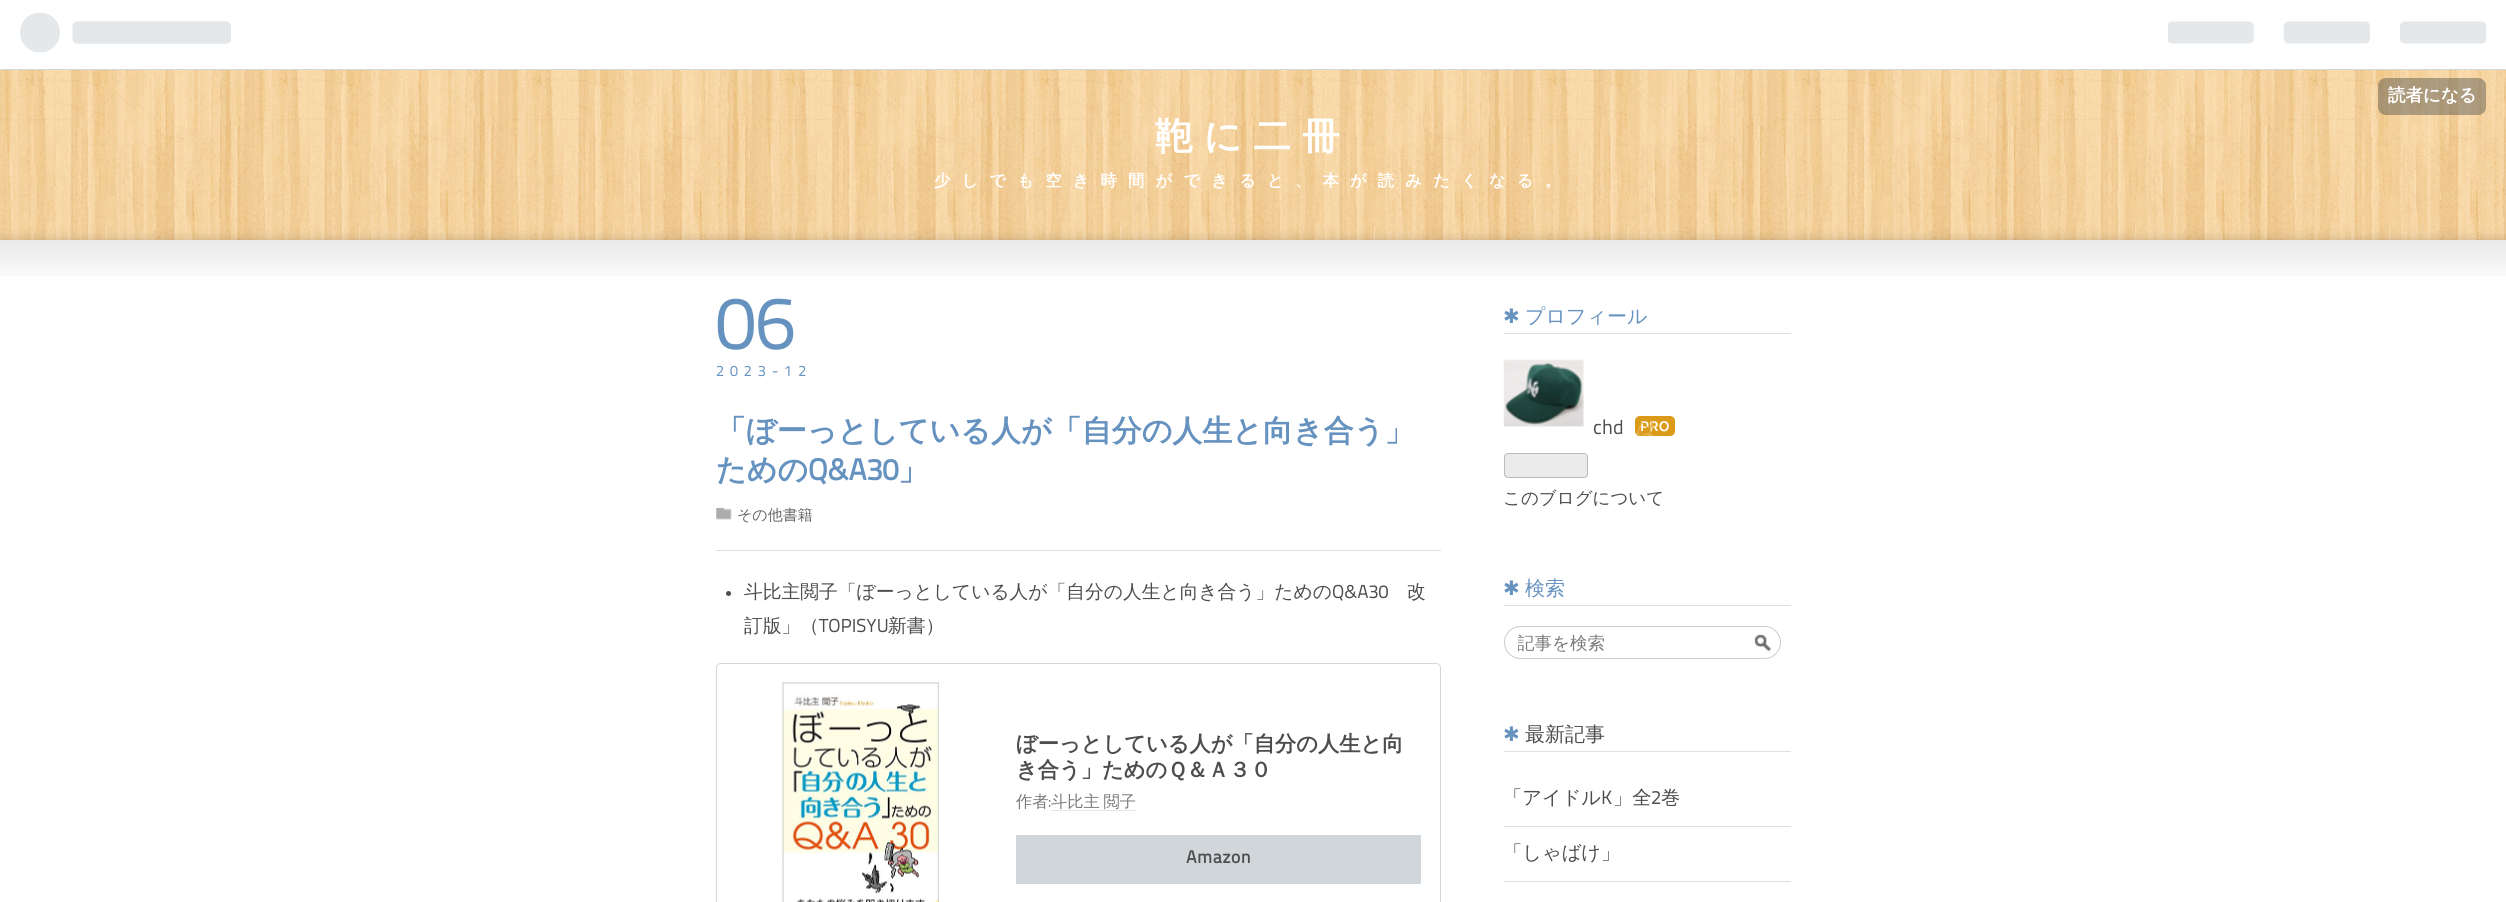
import math
import cairo



def draw_spaced(context, x, y, s, letter, word):
    context.move_to(x, y)
    for ch in s:
        context.show_text(ch)
        context.rel_move_to(letter + word * (ch == ' '), 0)


def rounded_rect(context, x, y, w, h, r):
    context.new_sub_path()
    for i, (u, v) in enumerate([(x + w - r, y + h - r), (x + r, y + h - r), (x + r, y + r), (x + w - r, y + r)]):
        context.arc(u, v, r, i * math.pi / 2, (i + 1) * math.pi / 2)
    context.close_path()


def draw_shadow(context, x, y, w, h, r, blur, alpha):
    context.push_group_with_content(cairo.Content.ALPHA)
    context.set_operator(cairo.Operator.SOURCE)
    for i in range(15, -16, -2):
        e = blur * i / 6
        if min(w, h) + 2 * e > 0:
            context.set_source_rgba(0, 0, 0, alpha * math.erfc((i - 1) / 8.5) / 2)
            rounded_rect(context, x - e, y - e, w + 2 * e, h + 2 * e, max(0, min(r + e + blur * .6, min(w, h) / 2 + e)))
            context.fill()
    context.mask(context.pop_group())


def draw_image(context, path, x, y, w, h):
    context.save()
    context.set_source_surface(cairo.ImageSurface.create_from_png(path), x, y)
    context.rectangle(x, y, w, h)
    context.fill()
    context.restore()


def draw(context):
    context.set_source_rgb(1, 1, 1)
    context.paint()
    draw_image(context, "images/1.png", 0, 70, 2506, 170)
    context.set_source_rgb(210 / 255, 216 / 255, 221 / 255)
    context.rectangle(0, 69, 2506, 1)
    context.fill()
    draw_image(context, "images/2.png", 20, 13, 211, 40)
    draw_image(context, "images/3.png", 2168, 21, 318, 23)
    context.set_source_rgba(61 / 255, 66 / 255, 69 / 255, 0.4)
    rounded_rect(context, 2378, 78, 108, 37, 8)
    context.fill()
    context.set_source_rgb(0, 0, 0)
    draw_shadow(context, 0, 240, 2506, 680, 0, 6, 0.2)
    context.set_source_rgb(1, 1, 1)
    context.rectangle(0, 276, 2506, 626)
    context.fill()
    draw_image(context, "images/4.png", 0, 240, 2506, 36)
    context.set_source_rgb(223 / 255, 223 / 255, 223 / 255)
    context.rectangle(716, 550, 725, 1)
    context.fill()
    draw_image(context, "images/5.png", 716, 508, 16, 12)
    context.set_source_rgb(77 / 255, 77 / 255, 77 / 255)
    context.arc(728.5, 593.5, 2.5, 0, 2 * math.pi)
    context.fill()
    rounded_rect(context, 716.5, 663.5, 724, 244, 4.5)
    context.set_source_rgb(210 / 255, 216 / 255, 221 / 255)
    context.set_line_width(1)
    context.stroke()
    draw_image(context, "images/6.png", 782, 682, 157, 220)
    context.set_source_rgb(230 / 255, 230 / 255, 230 / 255)
    context.rectangle(1051, 810, 85, 1)
    context.fill()
    context.set_source_rgb(209 / 255, 214 / 255, 218 / 255)
    context.rectangle(1016, 835, 405, 49)
    context.fill()
    context.set_source_rgb(223 / 255, 223 / 255, 223 / 255)
    context.rectangle(1504, 333, 287, 1)
    context.fill()
    draw_image(context, "images/7.png", 1503, 359, 81, 68)
    draw_image(context, "images/8.png", 1635, 416, 40, 20)
    context.set_source_rgb(235 / 255, 235 / 255, 235 / 255)
    rounded_rect(context, 1504.5, 453.5, 83, 24, 3.5)
    context.fill_preserve()
    context.set_source_rgb(187 / 255, 187 / 255, 187 / 255)
    context.stroke()
    context.set_source_rgb(223 / 255, 223 / 255, 223 / 255)
    context.rectangle(1504, 605, 287, 1)
    context.fill()
    rounded_rect(context, 1504.5, 626.5, 276, 32, 16)
    context.set_source_rgb(204 / 255, 204 / 255, 204 / 255)
    context.stroke()
    draw_image(context, "images/9.png", 1754, 634, 18, 18)
    context.set_source_rgb(223 / 255, 223 / 255, 223 / 255)
    context.rectangle(1504, 751, 287, 1)
    context.fill()
    context.set_source_rgb(221 / 255, 221 / 255, 221 / 255)
    context.rectangle(1504, 826, 287, 1)
    context.fill()
    context.rectangle(1504, 881, 287, 1)
    context.fill()
    context.select_font_face("WenQuanYi Zen Hei", cairo.FontSlant.NORMAL, cairo.FontWeight.BOLD)
    context.set_font_size(17.5)
    context.set_source_rgb(1, 1, 1)
    context.move_to(2388, 101)
    context.show_text("読者になる")
    context.set_font_size(37.5)
    draw_spaced(context, 1155, 149, "鞄に二冊", 11.25, 0)
    context.set_font_size(16.25)
    draw_spaced(context, 934, 186, "少しでも空き時間ができると、本が読みたくなる。", 11.25, 0)
    context.select_font_face("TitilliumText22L")
    context.set_font_size(75)
    context.set_source_rgb(102 / 255, 146 / 255, 192 / 255)
    context.move_to(716, 349)
    context.show_text("06")
    context.set_font_size(15)
    draw_spaced(context, 716, 376, "2023-12", 6, 0)
    context.select_font_face("WenQuanYi Zen Hei", cairo.FontSlant.NORMAL, cairo.FontWeight.BOLD)
    context.set_font_size(30)
    context.move_to(716, 441)
    context.show_text("「ぼーっとしている人が「自分の人生と向き合う」")
    context.move_to(716, 480)
    context.show_text("ための")
    context.select_font_face("TitilliumText22L", cairo.FontSlant.NORMAL, cairo.FontWeight.BOLD)
    context.move_to(808, 480)
    context.show_text("Q&A30")
    context.select_font_face("WenQuanYi Zen Hei", cairo.FontSlant.NORMAL, cairo.FontWeight.BOLD)
    context.move_to(898, 480)
    context.show_text("」")
    context.select_font_face("WenQuanYi Zen Hei Medium")
    context.set_font_size(15)
    context.set_source_rgb(102 / 255, 102 / 255, 102 / 255)
    context.move_to(737, 520)
    context.show_text("その他書籍")
    context.set_font_size(18.75)
    context.set_source_rgb(77 / 255, 77 / 255, 77 / 255)
    context.move_to(744, 598)
    context.show_text("斗比主閲子「ぼーっとしている人が「自分の人生と向き合う」ための")
    context.select_font_face("TitilliumText22L")
    context.move_to(1332, 598)
    context.show_text("Q&A30")
    context.select_font_face("WenQuanYi Zen Hei Medium")
    context.move_to(1407, 598)
    context.show_text("改")
    context.move_to(744, 632)
    context.show_text("訂版」（")
    context.select_font_face("TitilliumText22L")
    context.move_to(819, 632)
    context.show_text("TOPISYU")
    context.select_font_face("WenQuanYi Zen Hei Medium")
    context.move_to(888, 632)
    context.show_text("新書）")
    context.select_font_face("WenQuanYi Zen Hei", cairo.FontSlant.NORMAL, cairo.FontWeight.BOLD)
    context.set_font_size(21.25)
    context.move_to(1016, 751)
    context.show_text("ぼーっとしている人が「自分の人生と向")
    context.move_to(1016, 777)
    context.show_text("き合う」ためのＱ＆Ａ３０")
    context.select_font_face("WenQuanYi Zen Hei Medium")
    context.set_font_size(16.25)
    context.set_source_rgb(122 / 255, 122 / 255, 122 / 255)
    context.move_to(1016, 807)
    context.show_text("作者")
    context.select_font_face("TitilliumText22L")
    context.move_to(1048, 807)
    context.show_text(":")
    context.select_font_face("WenQuanYi Zen Hei Medium")
    draw_spaced(context, 1051, 807, "斗比主 閲子", 0, -1)
    context.select_font_face("TitilliumText22L", cairo.FontSlant.NORMAL, cairo.FontWeight.BOLD)
    context.set_font_size(17.5)
    context.set_source_rgb(77 / 255, 77 / 255, 77 / 255)
    draw_spaced(context, 1186, 863, "Amazon", 0.5, 0)
    context.select_font_face("DejaVu Sans")
    context.set_font_size(20)
    context.set_source_rgb(102 / 255, 146 / 255, 192 / 255)
    context.move_to(1503, 323)
    context.show_text("✱")
    context.select_font_face("WenQuanYi Zen Hei Medium")
    context.move_to(1525, 323)
    context.show_text("プロフィール")
    context.select_font_face("TitilliumText22L")
    context.set_source_rgb(77 / 255, 77 / 255, 77 / 255)
    context.move_to(1593, 434)
    context.show_text("chd")
    context.save()
    context.rectangle(1635, 416, 40, 20)
    context.clip()
    context.select_font_face("WenQuanYi Zen Hei Medium", cairo.FontSlant.ITALIC)
    context.set_source_rgb(229 / 255, 184 / 255, 91 / 255)
    context.move_to(1635, 436)
    context.show_text("は")
    context.restore()
    context.select_font_face("WenQuanYi Zen Hei Medium")
    context.set_font_size(17.5)
    context.move_to(1503, 504)
    context.show_text("このブログについて")
    context.select_font_face("DejaVu Sans")
    context.set_font_size(20)
    context.set_source_rgb(102 / 255, 146 / 255, 192 / 255)
    context.move_to(1503, 595)
    context.show_text("✱")
    context.select_font_face("WenQuanYi Zen Hei Medium")
    context.move_to(1525, 595)
    context.show_text("検索")
    context.save()
    context.rectangle(1518, 633, 250, 22)
    context.clip()
    context.set_font_size(17.5)
    context.set_source_rgb(122 / 255, 122 / 255, 122 / 255)
    context.move_to(1517, 649)
    context.show_text("記事を検索")
    context.restore()
    context.select_font_face("DejaVu Sans")
    context.move_to(1503, 741)
    context.show_text("✱")
    context.select_font_face("WenQuanYi Zen Hei Medium")
    context.set_source_rgb(77 / 255, 77 / 255, 77 / 255)
    context.move_to(1525, 741)
    context.show_text("最新記事")
    context.set_font_size(19.25)
    context.move_to(1503, 804)
    context.show_text("「アイドル")
    context.select_font_face("TitilliumText22L")
    context.move_to(1601, 804)
    context.show_text("K")
    context.select_font_face("WenQuanYi Zen Hei Medium")
    context.move_to(1613, 804)
    context.show_text("」全")
    context.select_font_face("TitilliumText22L")
    context.move_to(1651, 804)
    context.show_text("2")
    context.select_font_face("WenQuanYi Zen Hei Medium")
    context.move_to(1661, 804)
    context.show_text("巻")
    context.move_to(1503, 859)
    context.show_text("「しゃばけ」")


surface = cairo.ImageSurface(cairo.Format.RGB24, 2506, 902)
context = cairo.Context(surface)
options = cairo.FontOptions()
options.set_hint_metrics(cairo.HintMetrics.OFF)
options.set_hint_style(cairo.HintStyle.NONE)
context.set_font_options(options)
context.set_miter_limit(4)
draw(context)
surface.write_to_png("out.png")
